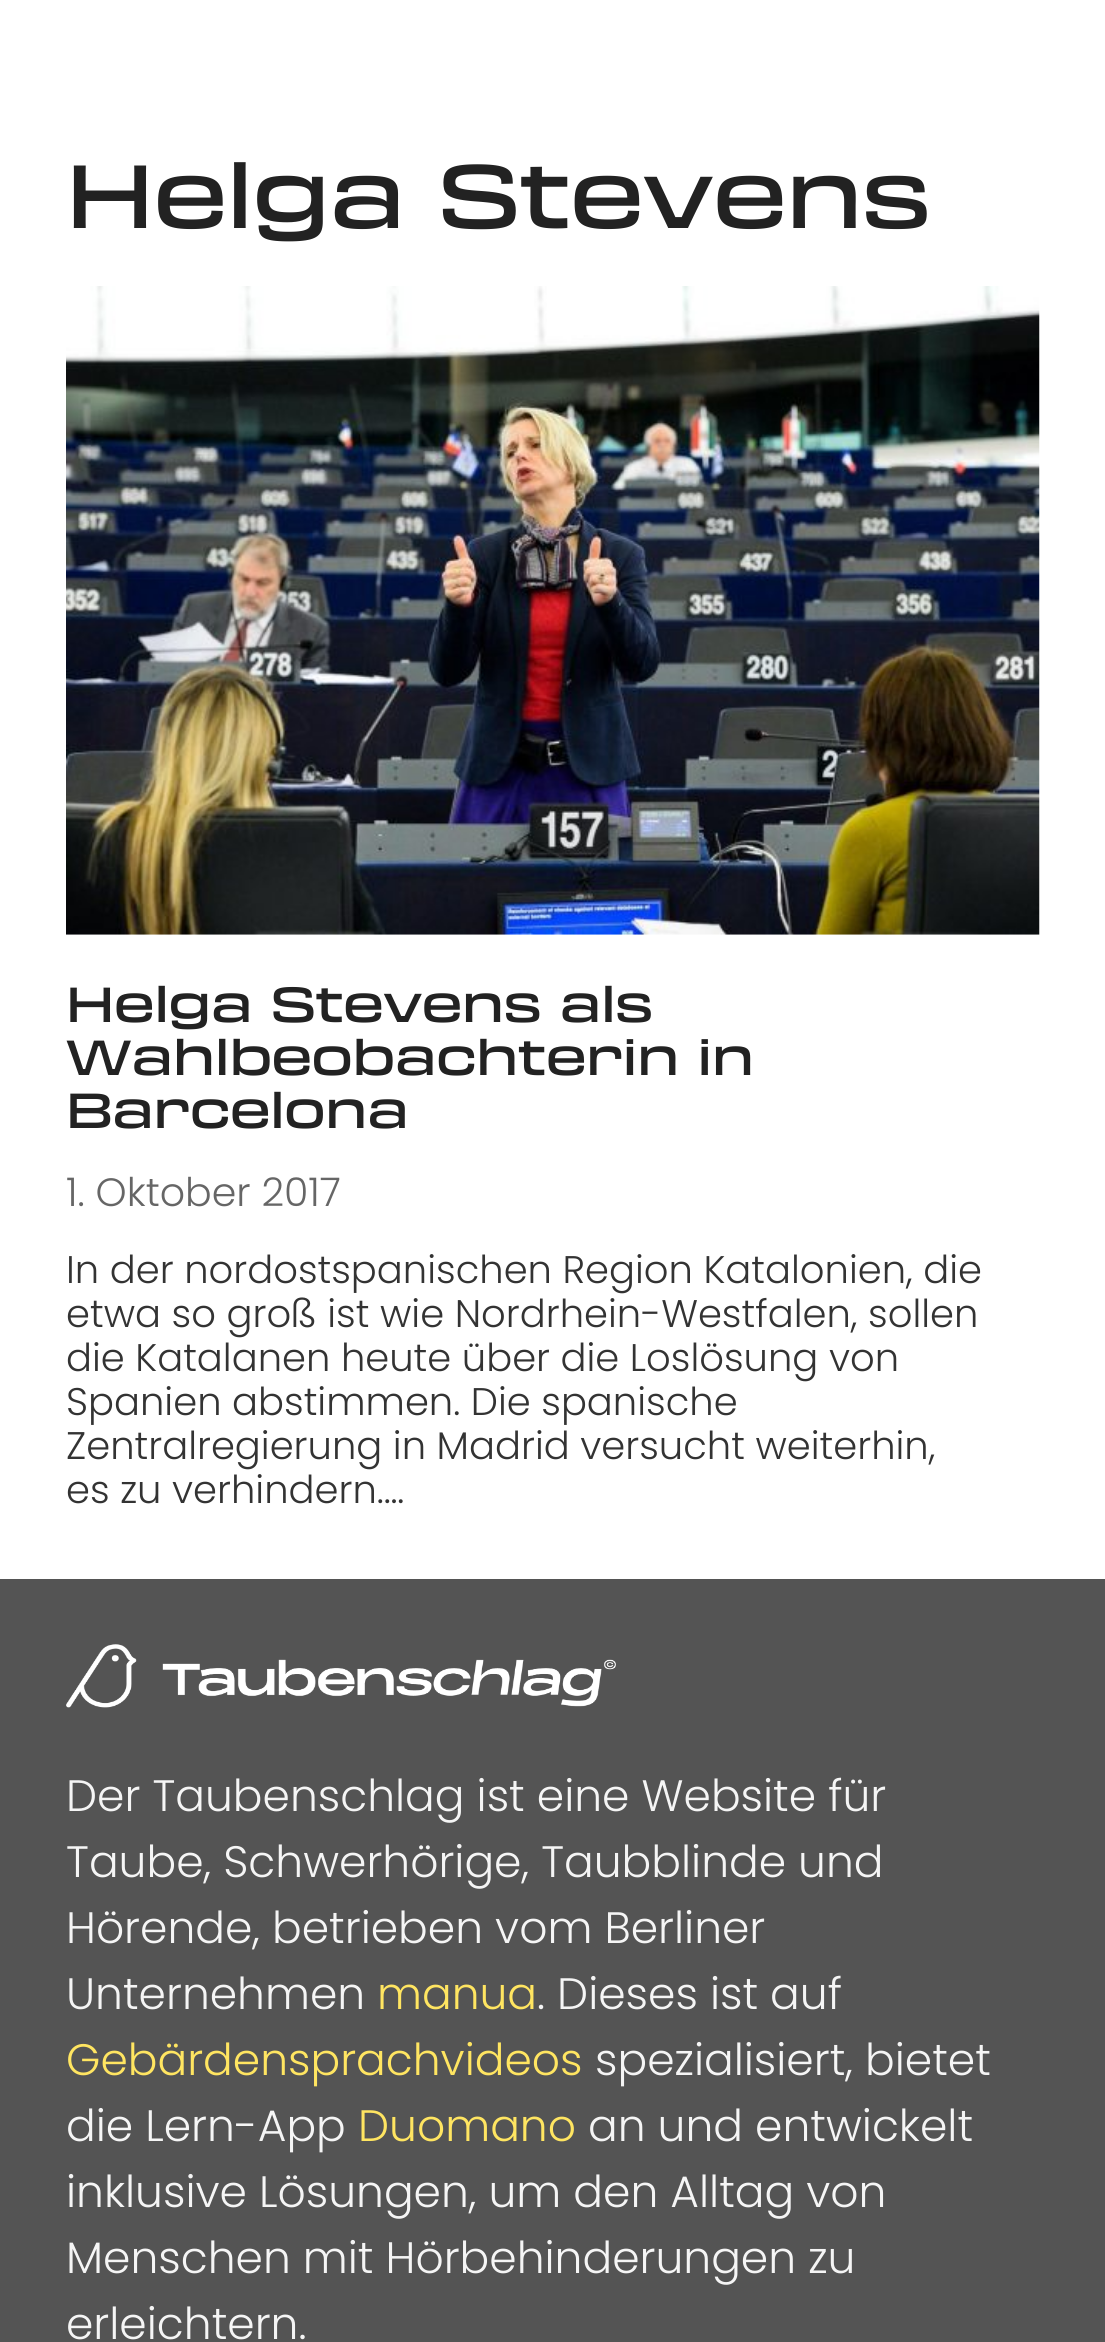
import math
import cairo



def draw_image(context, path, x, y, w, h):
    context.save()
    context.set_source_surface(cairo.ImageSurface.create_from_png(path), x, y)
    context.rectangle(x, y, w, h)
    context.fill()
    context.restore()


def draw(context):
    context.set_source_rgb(1, 1, 1)
    context.paint()
    draw_image(context, "images/1.png", 66, 286, 974, 649)
    context.set_source_rgb(84 / 255, 84 / 255, 84 / 255)
    context.rectangle(0, 1579, 1105, 763)
    context.fill()
    draw_image(context, "images/2.png", 66, 1644, 550, 64)
    context.select_font_face("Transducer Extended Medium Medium")
    context.set_font_size(88)
    context.set_source_rgb(34 / 255, 34 / 255, 34 / 255)
    context.move_to(66, 228)
    context.show_text("Helga Stevens")
    context.set_font_size(48.4)
    context.move_to(66, 1022)
    context.show_text("Helga Stevens als")
    context.move_to(66, 1075)
    context.show_text("Wahlbeobachterin in")
    context.move_to(66, 1128)
    context.show_text("Barcelona")
    context.select_font_face("Poppins Light")
    context.set_font_size(39.5)
    context.set_source_rgb(102 / 255, 102 / 255, 102 / 255)
    context.move_to(66, 1206)
    context.show_text("1. Oktober 2017")
    context.set_font_size(38.5)
    context.set_source_rgb(51 / 255, 51 / 255, 51 / 255)
    context.move_to(66, 1283)
    context.show_text("In der nordostspanischen Region Katalonien, die")
    context.move_to(66, 1327)
    context.show_text("etwa so groß ist wie Nordrhein-Westfalen, sollen")
    context.move_to(66, 1371)
    context.show_text("die Katalanen heute über die Loslösung von")
    context.move_to(66, 1415)
    context.show_text("Spanien abstimmen. Die spanische")
    context.move_to(66, 1459)
    context.show_text("Zentralregierung in Madrid versucht weiterhin,")
    context.move_to(66, 1503)
    context.show_text("es zu verhindern.…")
    context.set_font_size(44)
    context.set_source_rgb(245 / 255, 245 / 255, 245 / 255)
    context.move_to(66, 1811)
    context.show_text("Der Taubenschlag ist eine Website für")
    context.move_to(66, 1877)
    context.show_text("Taube, Schwerhörige, Taubblinde und")
    context.move_to(66, 1943)
    context.show_text("Hörende, betrieben vom Berliner")
    context.move_to(66, 2009)
    context.show_text("Unternehmen")
    context.set_source_rgb(1, 229 / 255, 97 / 255)
    context.move_to(377, 2009)
    context.show_text("manua")
    context.set_source_rgb(245 / 255, 245 / 255, 245 / 255)
    context.move_to(537, 2009)
    context.show_text(". Dieses ist auf")
    context.set_source_rgb(1, 229 / 255, 97 / 255)
    context.move_to(66, 2075)
    context.show_text("Gebärdensprachvideos")
    context.set_source_rgb(245 / 255, 245 / 255, 245 / 255)
    context.move_to(595, 2075)
    context.show_text("spezialisiert, bietet")
    context.move_to(66, 2141)
    context.show_text("die Lern-App")
    context.set_source_rgb(1, 229 / 255, 97 / 255)
    context.move_to(358, 2141)
    context.show_text("Duomano")
    context.set_source_rgb(245 / 255, 245 / 255, 245 / 255)
    context.move_to(588, 2141)
    context.show_text("an und entwickelt")
    context.move_to(66, 2207)
    context.show_text("inklusive Lösungen, um den Alltag von")
    context.move_to(66, 2273)
    context.show_text("Menschen mit Hörbehinderungen zu")
    context.move_to(66, 2339)
    context.show_text("erleichtern.")


surface = cairo.ImageSurface(cairo.Format.RGB24, 1105, 2342)
context = cairo.Context(surface)
options = cairo.FontOptions()
options.set_hint_metrics(cairo.HintMetrics.OFF)
options.set_hint_style(cairo.HintStyle.NONE)
context.set_font_options(options)
context.set_miter_limit(4)
draw(context)
surface.write_to_png("out.png")
